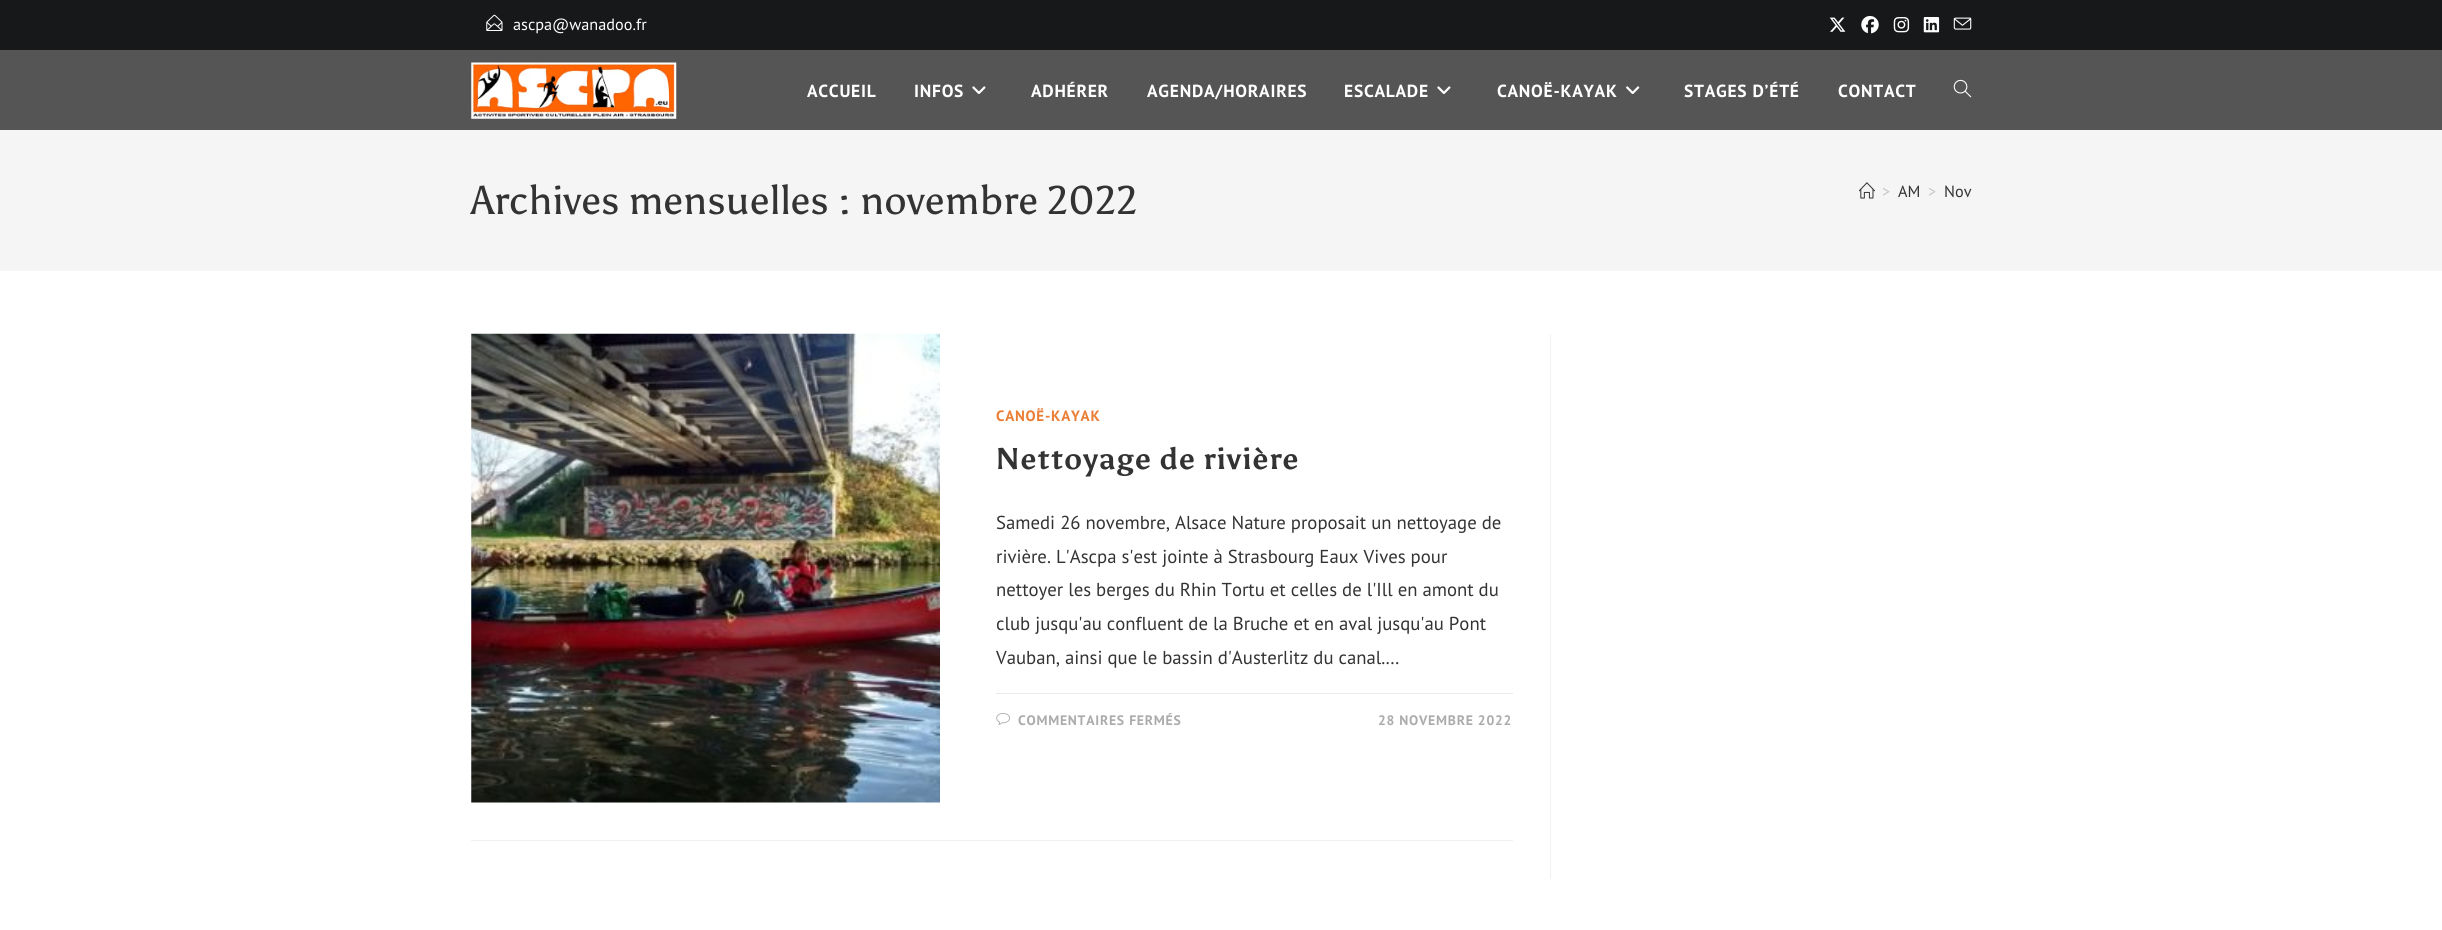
import math
import cairo



def draw_spaced(context, x, y, s, letter, word):
    context.move_to(x, y)
    for ch in s:
        context.show_text(ch)
        context.rel_move_to(letter + word * (ch == ' '), 0)


def draw_image(context, path, x, y, w, h):
    context.save()
    context.set_source_surface(cairo.ImageSurface.create_from_png(path), x, y)
    context.rectangle(x, y, w, h)
    context.fill()
    context.restore()


def draw(context):
    context.set_source_rgb(1, 1, 1)
    context.paint()
    context.set_source_rgb(22 / 255, 24 / 255, 25 / 255)
    context.rectangle(0, 0, 2442, 50)
    context.fill()
    draw_image(context, "images/1.png", 486, 14, 17, 17)
    draw_image(context, "images/2.png", 1829, 17, 17, 15)
    draw_image(context, "images/3.png", 1861, 16, 18, 18)
    draw_image(context, "images/4.png", 1893, 17, 17, 16)
    draw_image(context, "images/5.png", 1923, 17, 17, 16)
    draw_image(context, "images/6.png", 1953, 17, 19, 13)
    context.set_source_rgb(85 / 255, 85 / 255, 85 / 255)
    context.rectangle(0, 50, 2442, 80)
    context.fill()
    draw_image(context, "images/7.png", 471, 62, 206, 57)
    draw_image(context, "images/8.png", 972, 86, 14, 8)
    draw_image(context, "images/8.png", 1437, 86, 14, 8)
    draw_image(context, "images/9.png", 1626, 86, 14, 8)
    draw_image(context, "images/10.png", 1953, 79, 19, 19)
    context.set_source_rgb(245 / 255, 245 / 255, 245 / 255)
    context.rectangle(0, 130, 2442, 141)
    context.fill()
    draw_image(context, "images/11.png", 1859, 182, 16, 17)
    context.set_source_rgb(241 / 255, 241 / 255, 241 / 255)
    context.rectangle(1550, 334, 1, 545)
    context.fill()
    context.rectangle(471, 840, 1042, 1)
    context.fill()
    draw_image(context, "images/12.png", 471, 333, 469, 470)
    context.set_source_rgb(233 / 255, 233 / 255, 233 / 255)
    context.rectangle(996, 693, 517, 1)
    context.fill()
    draw_image(context, "images/13.png", 996, 713, 14, 12)
    context.select_font_face("PT Sans")
    context.set_font_size(16.25)
    context.set_source_rgb(1, 1, 1)
    context.move_to(513, 30)
    context.show_text("ascpa@wanadoo.fr")
    context.select_font_face("PT Sans", cairo.FontSlant.NORMAL, cairo.FontWeight.BOLD)
    context.set_font_size(17.5)
    draw_spaced(context, 807, 97, "ACCUEIL", 0.75, 0)
    draw_spaced(context, 914, 97, "INFOS", 0.75, 0)
    draw_spaced(context, 1031, 97, "ADHÉRER", 0.75, 0)
    draw_spaced(context, 1147, 97, "AGENDA/HORAIRES", 0.75, 0)
    draw_spaced(context, 1344, 97, "ESCALADE", 0.75, 0)
    draw_spaced(context, 1497, 97, "CANOË-KAYAK", 0.75, 0)
    draw_spaced(context, 1684, 97, "STAGES D’ÉTÉ", 0.75, 0)
    draw_spaced(context, 1838, 97, "CONTACT", 0.75, 0)
    context.select_font_face("Asul")
    context.set_font_size(40)
    context.set_source_rgb(51 / 255, 51 / 255, 51 / 255)
    context.move_to(471, 214)
    context.show_text("Archives mensuelles : novembre 2022")
    context.select_font_face("PT Sans")
    context.set_font_size(16.25)
    context.set_source_rgb(198 / 255, 198 / 255, 198 / 255)
    context.move_to(1882, 197)
    context.show_text(">")
    context.set_source_rgb(51 / 255, 51 / 255, 51 / 255)
    context.move_to(1898, 197)
    context.show_text("AM")
    context.set_source_rgb(198 / 255, 198 / 255, 198 / 255)
    context.move_to(1928, 197)
    context.show_text(">")
    context.set_source_rgb(51 / 255, 51 / 255, 51 / 255)
    context.move_to(1944, 197)
    context.show_text("Nov")
    context.select_font_face("PT Sans", cairo.FontSlant.NORMAL, cairo.FontWeight.BOLD)
    context.set_font_size(15)
    context.set_source_rgb(234 / 255, 126 / 255, 53 / 255)
    draw_spaced(context, 996, 421, "CANOË-KAYAK", 0.75, 0)
    context.select_font_face("Asul", cairo.FontSlant.NORMAL, cairo.FontWeight.BOLD)
    context.set_font_size(30)
    context.set_source_rgb(51 / 255, 51 / 255, 51 / 255)
    draw_spaced(context, 996, 469, "Nettoyage de rivière", 0.75, 0)
    context.select_font_face("PT Sans")
    context.set_font_size(18.75)
    context.move_to(996, 529)
    context.show_text("Samedi 26 novembre, Alsace Nature proposait un nettoyage de")
    context.move_to(996, 563)
    context.show_text("rivière. L'Ascpa s'est jointe à Strasbourg Eaux Vives pour")
    context.move_to(996, 596)
    context.show_text("nettoyer les berges du Rhin Tortu et celles de l'Ill en amont du")
    context.move_to(996, 630)
    context.show_text("club jusqu'au confluent de la Bruche et en aval jusqu'au Pont")
    context.move_to(996, 664)
    context.show_text("Vauban, ainsi que le bassin d'Austerlitz du canal.…")
    context.select_font_face("PT Sans", cairo.FontSlant.NORMAL, cairo.FontWeight.BOLD)
    context.set_font_size(13.75)
    context.set_source_rgb(171 / 255, 171 / 255, 171 / 255)
    draw_spaced(context, 1018, 725, "COMMENTAIRES FERMÉS", 0.75, 0)
    draw_spaced(context, 1378, 725, "28 NOVEMBRE 2022", 0.75, 0)


surface = cairo.ImageSurface(cairo.Format.RGB24, 2442, 930)
context = cairo.Context(surface)
options = cairo.FontOptions()
options.set_hint_metrics(cairo.HintMetrics.OFF)
options.set_hint_style(cairo.HintStyle.NONE)
context.set_font_options(options)
context.set_miter_limit(4)
draw(context)
surface.write_to_png("out.png")
